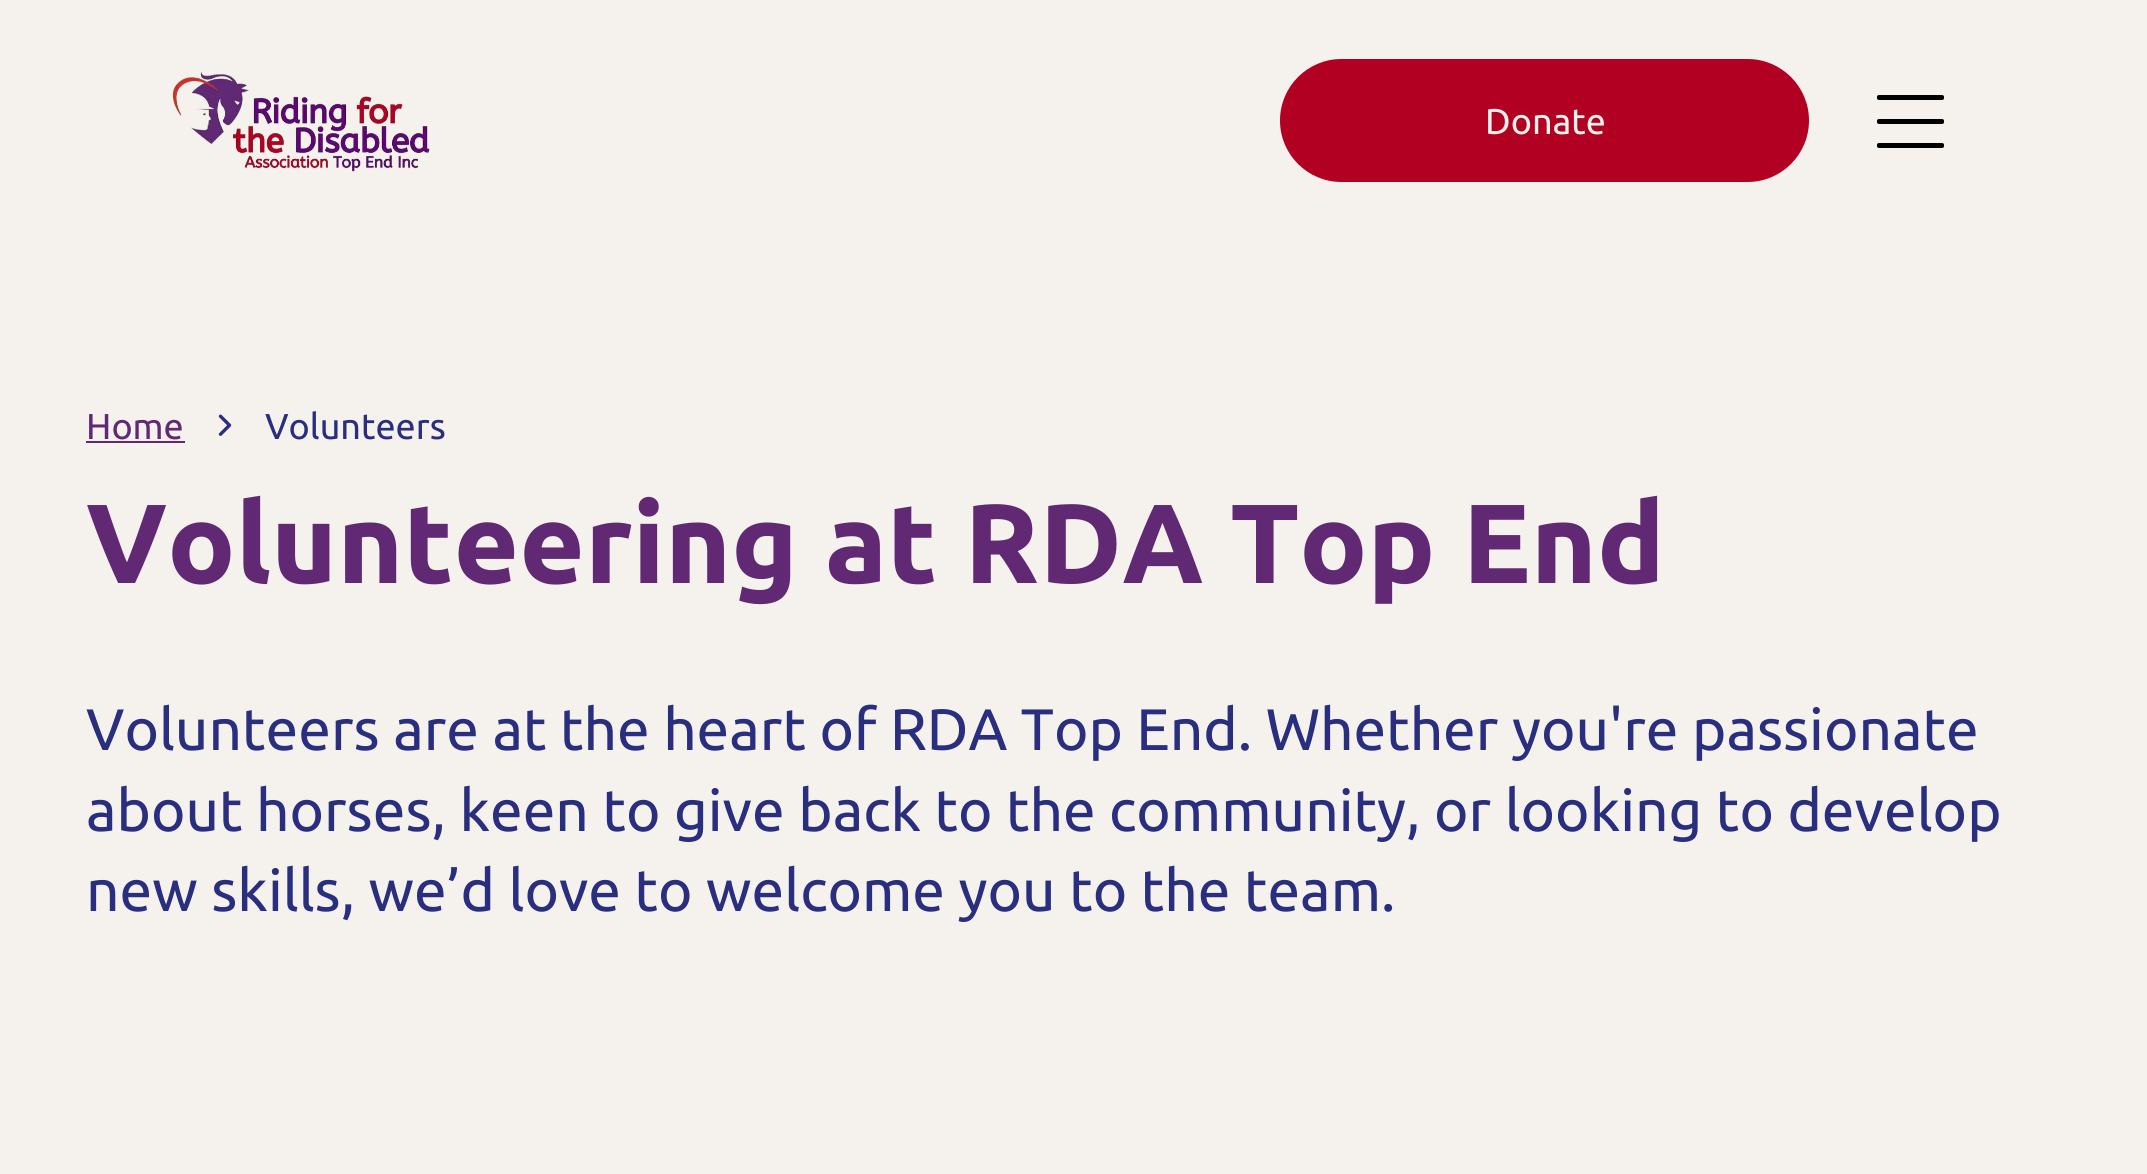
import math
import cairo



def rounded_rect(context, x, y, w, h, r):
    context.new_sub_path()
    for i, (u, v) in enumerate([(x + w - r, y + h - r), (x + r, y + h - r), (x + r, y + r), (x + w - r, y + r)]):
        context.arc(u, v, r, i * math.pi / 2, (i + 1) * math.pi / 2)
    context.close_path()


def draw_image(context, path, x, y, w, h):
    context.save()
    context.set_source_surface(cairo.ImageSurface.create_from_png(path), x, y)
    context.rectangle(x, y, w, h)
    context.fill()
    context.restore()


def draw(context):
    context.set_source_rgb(245 / 255, 242 / 255, 237 / 255)
    context.paint()
    draw_image(context, "images/1.png", 172, 71, 258, 101)
    context.set_source_rgb(177 / 255, 0, 34 / 255)
    rounded_rect(context, 1280, 59, 529, 123, 61.5)
    context.fill()
    context.save()
    context.rectangle(1877, 88, 67, 67)
    context.clip()
    context.set_source_rgb(0, 0, 0)
    context.new_path()
    context.move_to(1879, 95)
    context.curve_to(1876, 95, 1876, 100, 1879, 100)
    context.line_to(1942, 100)
    context.curve_to(1945, 100, 1945, 95, 1942, 95)
    context.close_path()
    context.move_to(1879, 119)
    context.curve_to(1876, 119, 1876, 124, 1879, 124)
    context.line_to(1942, 124)
    context.curve_to(1945, 124, 1945, 119, 1942, 119)
    context.close_path()
    context.move_to(1879, 143)
    context.curve_to(1876, 143, 1876, 148, 1879, 148)
    context.line_to(1942, 148)
    context.curve_to(1945, 148, 1945, 143, 1942, 143)
    context.close_path()
    context.fill()
    context.restore()
    context.set_source_rgb(97 / 255, 41 / 255, 116 / 255)
    context.rectangle(86, 441, 99, 2)
    context.fill()
    draw_image(context, "images/2.png", 218, 414, 14, 22)
    context.select_font_face("Ubuntu")
    context.set_font_size(36)
    context.set_source_rgb(245 / 255, 242 / 255, 237 / 255)
    context.move_to(1485, 134)
    context.show_text("Donate")
    context.set_source_rgb(97 / 255, 41 / 255, 116 / 255)
    context.move_to(86, 439)
    context.show_text("Home")
    context.set_source_rgb(41 / 255, 46 / 255, 127 / 255)
    context.move_to(265, 439)
    context.show_text("Volunteers")
    context.select_font_face("Ubuntu", cairo.FontSlant.NORMAL, cairo.FontWeight.BOLD)
    context.set_font_size(112.5)
    context.set_source_rgb(97 / 255, 41 / 255, 116 / 255)
    context.move_to(86, 583)
    context.show_text("Volunteering at RDA Top End")
    context.select_font_face("Ubuntu")
    context.set_font_size(58.5)
    context.set_source_rgb(41 / 255, 46 / 255, 127 / 255)
    context.move_to(86, 750)
    context.show_text("Volunteers are at the heart of RDA Top End. Whether you're passionate")
    context.move_to(86, 831)
    context.show_text("about horses, keen to give back to the community, or looking to develop")
    context.move_to(86, 911)
    context.show_text("new skills, we’d love to welcome you to the team.")


surface = cairo.ImageSurface(cairo.Format.RGB24, 2147, 1174)
context = cairo.Context(surface)
options = cairo.FontOptions()
options.set_hint_metrics(cairo.HintMetrics.OFF)
options.set_hint_style(cairo.HintStyle.NONE)
context.set_font_options(options)
context.set_miter_limit(4)
draw(context)
surface.write_to_png("out.png")
